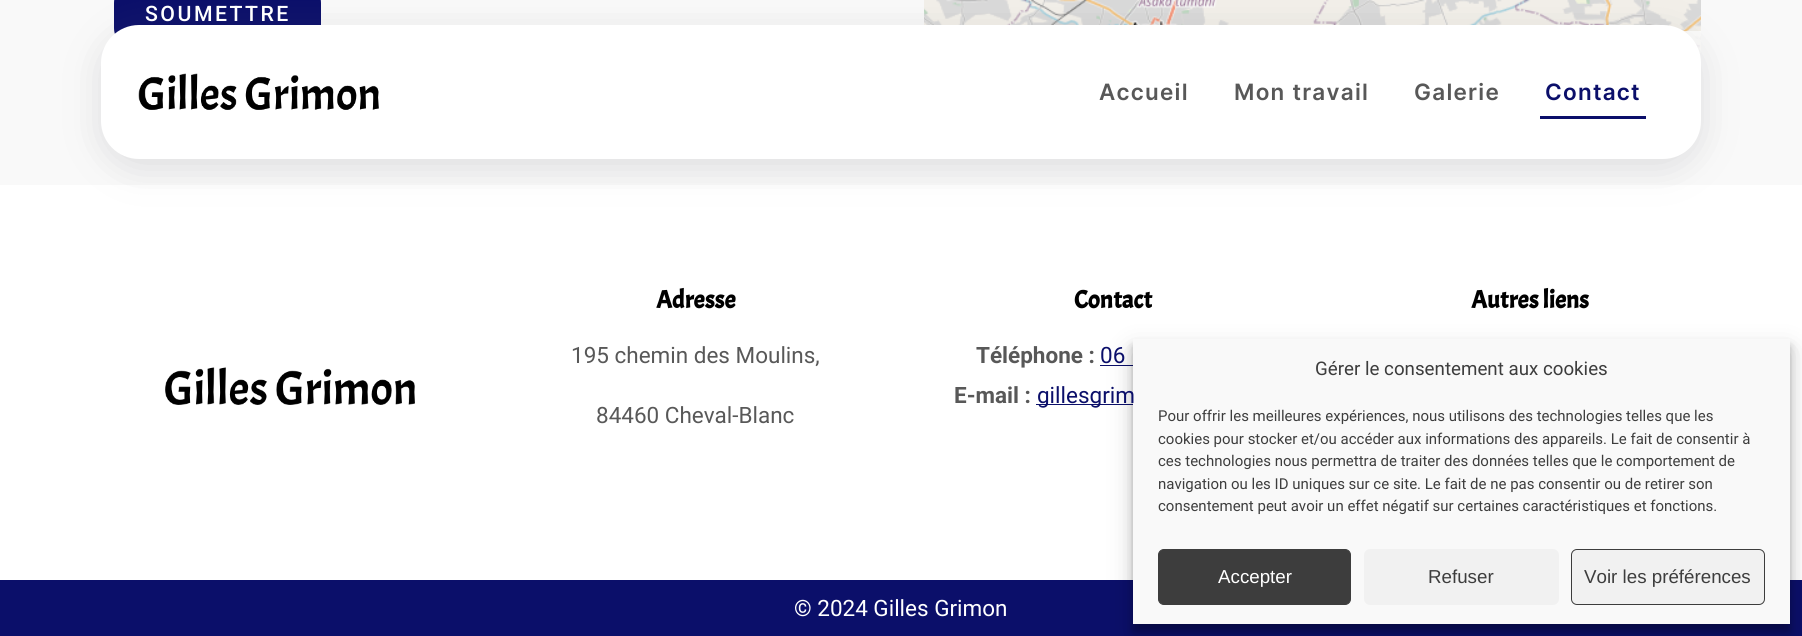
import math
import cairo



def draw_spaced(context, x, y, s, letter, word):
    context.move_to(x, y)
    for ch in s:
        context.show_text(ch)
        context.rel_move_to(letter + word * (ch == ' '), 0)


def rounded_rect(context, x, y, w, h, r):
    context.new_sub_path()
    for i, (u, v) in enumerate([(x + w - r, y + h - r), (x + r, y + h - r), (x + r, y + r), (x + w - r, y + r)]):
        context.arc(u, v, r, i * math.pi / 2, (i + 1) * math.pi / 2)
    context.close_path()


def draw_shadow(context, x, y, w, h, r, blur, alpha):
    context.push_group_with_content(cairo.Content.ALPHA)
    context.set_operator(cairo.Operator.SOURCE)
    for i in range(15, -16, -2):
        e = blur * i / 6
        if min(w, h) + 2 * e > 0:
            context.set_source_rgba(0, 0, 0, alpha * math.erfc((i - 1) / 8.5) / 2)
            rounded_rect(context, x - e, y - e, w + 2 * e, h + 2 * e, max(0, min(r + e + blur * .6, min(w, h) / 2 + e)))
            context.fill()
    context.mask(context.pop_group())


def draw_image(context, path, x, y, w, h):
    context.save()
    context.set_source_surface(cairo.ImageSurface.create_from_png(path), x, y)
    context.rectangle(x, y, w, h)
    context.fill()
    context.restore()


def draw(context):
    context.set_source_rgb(1, 1, 1)
    context.paint()
    context.set_source_rgb(249 / 255, 249 / 255, 249 / 255)
    context.rectangle(0, 0, 1802, 185)
    context.fill()
    context.set_source_rgb(11 / 255, 15 / 255, 106 / 255)
    rounded_rect(context, 114, -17, 207, 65, 20)
    context.fill()
    draw_image(context, "images/1.png", 924, 0, 225, 25)
    draw_image(context, "images/2.png", 1149, 0, 320, 25)
    draw_image(context, "images/3.png", 1469, 0, 232, 53)
    context.set_source_rgba(1, 1, 1, 0.8)
    context.rectangle(1683, 31, 18, 22)
    context.fill()
    draw_image(context, "images/4.png", 165, 367, 250, 38)
    context.set_source_rgb(11 / 255, 15 / 255, 106 / 255)
    context.rectangle(1100, 365, 33, 1)
    context.fill()
    context.rectangle(1036, 404, 97, 1)
    context.fill()
    context.rectangle(0, 580, 1802, 56)
    context.fill()
    context.set_source_rgb(100 / 255, 100 / 255, 111 / 255)
    draw_shadow(context, 101, 34, 1600, 134, 38, 18, 0.2)
    context.set_source_rgb(1, 1, 1)
    rounded_rect(context, 101, 25, 1600, 134, 38)
    context.fill()
    draw_image(context, "images/5.png", 138, 73, 241, 37)
    context.set_source_rgb(11 / 255, 15 / 255, 106 / 255)
    context.rectangle(1540, 116, 106, 3)
    context.fill()
    context.set_source_rgb(0, 0, 0)
    draw_shadow(context, 1133, 346, 657, 285, 0, 4, 0.23)
    draw_shadow(context, 1133, 351, 657, 285, 0, 12.5, 0.19)
    context.set_source_rgb(249 / 255, 249 / 255, 249 / 255)
    context.rectangle(1133, 339, 657, 285)
    context.fill()
    context.set_source_rgb(61 / 255, 61 / 255, 61 / 255)
    rounded_rect(context, 1158.5, 549.5, 192, 55, 5.5)
    context.fill_preserve()
    context.set_line_width(1)
    context.stroke()
    context.set_source_rgb(241 / 255, 241 / 255, 241 / 255)
    rounded_rect(context, 1364, 549, 195, 56, 6)
    context.fill()
    rounded_rect(context, 1571.5, 549.5, 193, 55, 5.5)
    context.fill_preserve()
    context.set_source_rgb(61 / 255, 61 / 255, 61 / 255)
    context.stroke()
    context.select_font_face("Roboto Medium")
    context.set_font_size(21.25)
    context.set_source_rgb(1, 1, 1)
    draw_spaced(context, 145, 21, "SOUMETTRE", 2.5, 0)
    context.select_font_face("Acme", cairo.FontSlant.NORMAL, cairo.FontWeight.BOLD)
    context.set_font_size(25)
    context.set_source_rgb(0, 0, 0)
    context.move_to(656, 308)
    context.show_text("Adresse")
    context.select_font_face("Roboto")
    context.set_font_size(22.5)
    context.set_source_rgb(88 / 255, 88 / 255, 88 / 255)
    context.move_to(571, 363)
    context.show_text("195 chemin des Moulins,")
    context.move_to(596, 423)
    context.show_text("84460 Cheval-Blanc")
    context.select_font_face("Acme", cairo.FontSlant.NORMAL, cairo.FontWeight.BOLD)
    context.set_font_size(25)
    context.set_source_rgb(0, 0, 0)
    context.move_to(1074, 308)
    context.show_text("Contact")
    context.select_font_face("Roboto", cairo.FontSlant.NORMAL, cairo.FontWeight.BOLD)
    context.set_font_size(22.5)
    context.set_source_rgb(88 / 255, 88 / 255, 88 / 255)
    context.move_to(976, 363)
    context.show_text("Téléphone :")
    context.select_font_face("Roboto")
    context.set_source_rgb(11 / 255, 15 / 255, 106 / 255)
    context.move_to(1100, 363)
    context.show_text("06")
    context.select_font_face("Roboto", cairo.FontSlant.NORMAL, cairo.FontWeight.BOLD)
    context.set_source_rgb(88 / 255, 88 / 255, 88 / 255)
    context.move_to(954, 403)
    context.show_text("E-mail :")
    context.select_font_face("Roboto")
    context.set_source_rgb(11 / 255, 15 / 255, 106 / 255)
    context.move_to(1037, 403)
    context.show_text("gillesgrim")
    context.select_font_face("Acme", cairo.FontSlant.NORMAL, cairo.FontWeight.BOLD)
    context.set_font_size(25)
    context.set_source_rgb(0, 0, 0)
    context.move_to(1471, 308)
    context.show_text("Autres liens")
    context.select_font_face("Roboto")
    context.set_font_size(22.5)
    context.set_source_rgb(1, 1, 1)
    context.move_to(794, 616)
    context.show_text("© 2024 Gilles Grimon")
    context.select_font_face("Inter SemiBold")
    context.set_source_rgb(88 / 255, 88 / 255, 88 / 255)
    draw_spaced(context, 1099, 100, "Accueil", 1.25, 0)
    draw_spaced(context, 1234, 100, "Mon travail", 1.25, 0)
    draw_spaced(context, 1414, 100, "Galerie", 1.25, 0)
    context.set_source_rgb(11 / 255, 15 / 255, 106 / 255)
    draw_spaced(context, 1545, 100, "Contact", 1.25, 0)
    context.select_font_face("Roboto")
    context.set_font_size(18.75)
    context.set_source_rgb(61 / 255, 61 / 255, 61 / 255)
    context.move_to(1315, 375)
    context.show_text("Gérer le consentement aux cookies")
    context.set_font_size(15)
    context.move_to(1158, 421)
    context.show_text("Pour offrir les meilleures expériences, nous utilisons des technologies telles que les")
    context.move_to(1158, 444)
    context.show_text("cookies pour stocker et/ou accéder aux informations des appareils. Le fait de consentir à")
    context.move_to(1158, 466)
    context.show_text("ces technologies nous permettra de traiter des données telles que le comportement de")
    context.move_to(1158, 489)
    context.show_text("navigation ou les ID uniques sur ce site. Le fait de ne pas consentir ou de retirer son")
    context.move_to(1158, 511)
    context.show_text("consentement peut avoir un effet négatif sur certaines caractéristiques et fonctions.")
    context.select_font_face("Liberation Sans")
    context.set_font_size(18.75)
    context.set_source_rgb(1, 1, 1)
    context.move_to(1218, 583)
    context.show_text("Accepter")
    context.set_source_rgb(61 / 255, 61 / 255, 61 / 255)
    context.move_to(1428, 583)
    context.show_text("Refuser")
    context.move_to(1584, 583)
    context.show_text("Voir les préférences")


surface = cairo.ImageSurface(cairo.Format.RGB24, 1802, 636)
context = cairo.Context(surface)
options = cairo.FontOptions()
options.set_hint_metrics(cairo.HintMetrics.OFF)
options.set_hint_style(cairo.HintStyle.NONE)
context.set_font_options(options)
context.set_miter_limit(4)
draw(context)
surface.write_to_png("out.png")
